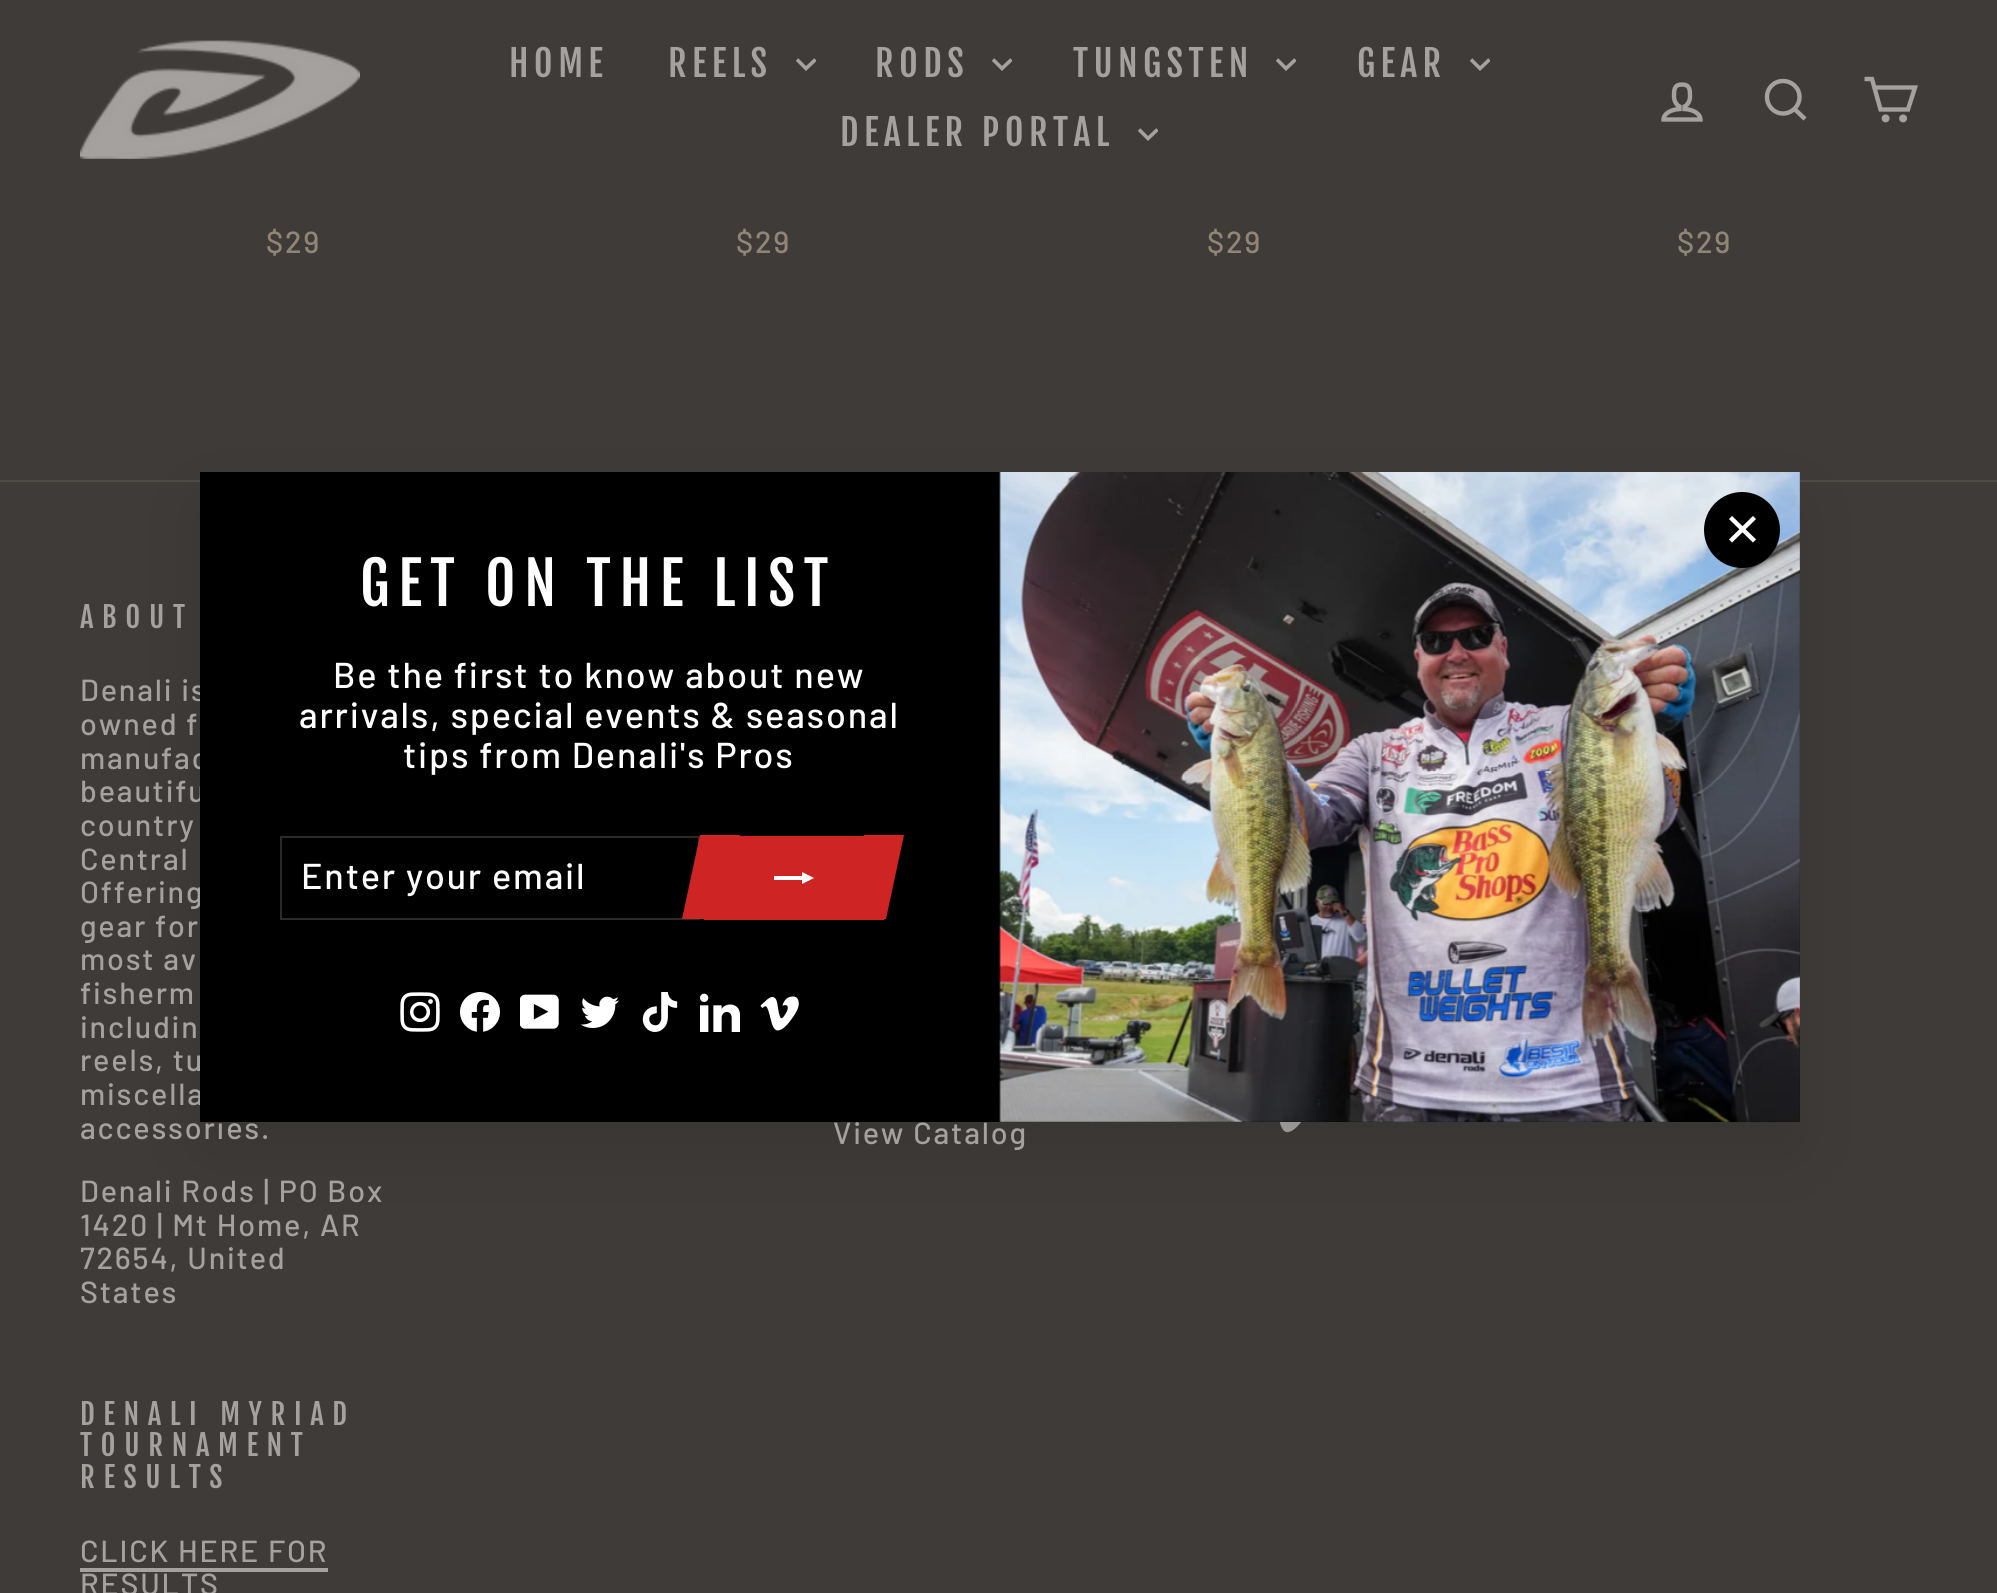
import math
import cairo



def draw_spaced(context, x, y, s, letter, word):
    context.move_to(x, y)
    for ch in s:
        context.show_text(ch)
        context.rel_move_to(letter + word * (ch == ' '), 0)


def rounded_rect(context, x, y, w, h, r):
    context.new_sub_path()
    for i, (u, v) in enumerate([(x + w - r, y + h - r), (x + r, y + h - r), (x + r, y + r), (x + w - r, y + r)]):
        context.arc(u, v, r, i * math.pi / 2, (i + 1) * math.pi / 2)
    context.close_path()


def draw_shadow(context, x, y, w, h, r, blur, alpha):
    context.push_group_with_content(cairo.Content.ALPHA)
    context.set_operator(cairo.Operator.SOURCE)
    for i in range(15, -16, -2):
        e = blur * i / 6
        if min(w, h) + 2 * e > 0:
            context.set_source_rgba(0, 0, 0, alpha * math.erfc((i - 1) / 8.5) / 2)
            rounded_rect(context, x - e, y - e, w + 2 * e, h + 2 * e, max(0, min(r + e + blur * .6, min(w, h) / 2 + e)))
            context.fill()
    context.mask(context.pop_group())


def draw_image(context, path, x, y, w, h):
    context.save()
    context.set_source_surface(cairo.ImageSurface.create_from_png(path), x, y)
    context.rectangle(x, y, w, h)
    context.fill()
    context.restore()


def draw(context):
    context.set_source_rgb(62 / 255, 59 / 255, 56 / 255)
    context.paint()
    draw_image(context, "images/1.png", 80, 40, 280, 119)
    context.save()
    context.rectangle(796, 54, 20, 20)
    context.clip()
    context.new_path()
    context.move_to(797, 59.5)
    context.line_to(806, 68.5)
    context.line_to(815.5, 59.5)
    context.set_source_rgb(164 / 255, 161 / 255, 158 / 255)
    context.set_line_width(3.6)
    context.stroke()
    context.restore()
    context.save()
    context.rectangle(992, 54, 20, 20)
    context.clip()
    context.new_path()
    context.move_to(993, 59.5)
    context.line_to(1002, 68.5)
    context.line_to(1011.5, 59.5)
    context.set_source_rgb(164 / 255, 161 / 255, 158 / 255)
    context.set_line_width(3.6)
    context.stroke()
    context.restore()
    context.save()
    context.rectangle(1276, 54, 20, 20)
    context.clip()
    context.new_path()
    context.move_to(1277, 59.5)
    context.line_to(1286, 68.5)
    context.line_to(1295.5, 59.5)
    context.set_source_rgb(164 / 255, 161 / 255, 158 / 255)
    context.set_line_width(3.6)
    context.stroke()
    context.restore()
    context.save()
    context.rectangle(1470, 54, 20, 20)
    context.clip()
    context.new_path()
    context.move_to(1471, 59.5)
    context.line_to(1480, 68.5)
    context.line_to(1489.5, 59.5)
    context.set_source_rgb(164 / 255, 161 / 255, 158 / 255)
    context.set_line_width(3.6)
    context.stroke()
    context.restore()
    context.save()
    context.rectangle(1138, 124, 20, 20)
    context.clip()
    context.new_path()
    context.move_to(1139, 129.5)
    context.line_to(1148, 138.5)
    context.line_to(1157.5, 129.5)
    context.set_source_rgb(164 / 255, 161 / 255, 158 / 255)
    context.set_line_width(3.6)
    context.stroke()
    context.restore()
    context.new_path()
    context.move_to(1684.5, 109)
    context.line_to(1684.5, 106.5)
    context.curve_to(1687.5, 105, 1690, 101, 1690, 96.5)
    context.curve_to(1690, 90, 1690, 84.5, 1682, 84.5)
    context.curve_to(1674, 84.5, 1674, 90, 1674, 96.5)
    context.curve_to(1674, 101, 1676.5, 105, 1679.5, 106.5)
    context.line_to(1679.5, 109)
    context.curve_to(1670.5, 109.5, 1663.5, 114, 1663.5, 119.5)
    context.line_to(1700.5, 119.5)
    context.curve_to(1700.5, 114, 1693.5, 109.5, 1684.5, 109)
    context.close_path()
    context.set_source_rgb(164 / 255, 161 / 255, 158 / 255)
    context.set_line_width(4.4)
    context.stroke()
    context.new_path()
    context.move_to(1799.5, 97)
    context.curve_to(1799.5, 106, 1792, 113.5, 1783, 113.5)
    context.curve_to(1774, 113.5, 1767, 106, 1767, 97)
    context.curve_to(1767, 88, 1774, 81, 1783, 81)
    context.curve_to(1792, 81, 1799.5, 88, 1799.5, 97)
    context.close_path()
    context.move_to(1805, 119)
    context.line_to(1794.5, 109)
    context.stroke()
    context.new_path()
    context.move_to(1874, 87.5)
    context.line_to(1915, 87.5)
    context.line_to(1908, 109.5)
    context.line_to(1880.5, 109.5)
    context.line_to(1872, 79)
    context.line_to(1864.5, 79)
    context.stroke()
    context.arc(1885.6, 118.4, 1.8, 0, 2 * math.pi)
    context.fill_preserve()
    context.stroke()
    context.arc(1903.1, 118.4, 1.8, 0, 2 * math.pi)
    context.fill_preserve()
    context.stroke()
    context.set_source_rgb(79 / 255, 76 / 255, 71 / 255)
    context.rectangle(0, 480, 1997, 2)
    context.fill()
    draw_image(context, "images/10.png", 1279, 1122, 23, 11)
    context.set_source_rgb(0, 0, 0)
    draw_shadow(context, 200, 502, 1600, 650, 0, 45, 0.1)
    context.set_source_rgb(164 / 255, 161 / 255, 158 / 255)
    context.rectangle(80, 1568, 248, 4)
    context.fill()
    context.select_font_face("Fjalla One")
    context.set_font_size(36)
    draw_spaced(context, 509, 77, "HOME", 5.4, 0)
    draw_spaced(context, 668, 77, "REELS", 5.4, 0)
    draw_spaced(context, 875, 77, "RODS", 5.4, 0)
    draw_spaced(context, 1073, 77, "TUNGSTEN", 5.4, 0)
    draw_spaced(context, 1357, 77, "GEAR", 5.4, 0)
    draw_spaced(context, 840, 146, "DEALER PORTAL", 5.4, 0)
    context.select_font_face("Barlow Medium")
    context.set_font_size(30.5)
    context.set_source_rgb(145 / 255, 134 / 255, 117 / 255)
    draw_spaced(context, 266, 253, "$29", 1.8, 0)
    draw_spaced(context, 736, 253, "$29", 1.8, 0)
    draw_spaced(context, 1207, 253, "$29", 1.8, 0)
    draw_spaced(context, 1677, 253, "$29", 1.8, 0)
    context.select_font_face("Fjalla One")
    context.set_font_size(28.75)
    context.set_source_rgb(164 / 255, 161 / 255, 158 / 255)
    draw_spaced(context, 80, 628, "ABOUT", 8.6, 0)
    context.select_font_face("Barlow Medium")
    context.set_font_size(30.5)
    draw_spaced(context, 80, 701, "Denali is", 1.8, 0)
    draw_spaced(context, 80, 735, "owned f", 1.8, 0)
    draw_spaced(context, 80, 769, "manufac", 1.8, 0)
    draw_spaced(context, 80, 802, "beautifu", 1.8, 0)
    draw_spaced(context, 80, 836, "country", 1.8, 0)
    draw_spaced(context, 80, 870, "Central", 1.8, 0)
    draw_spaced(context, 80, 903, "Offering", 1.8, 0)
    draw_spaced(context, 80, 937, "gear for", 1.8, 0)
    draw_spaced(context, 80, 970, "most av", 1.8, 0)
    draw_spaced(context, 80, 1004, "fisherm", 1.8, 0)
    draw_spaced(context, 80, 1038, "includin", 1.8, 0)
    draw_spaced(context, 80, 1071, "reels, tu", 1.8, 0)
    draw_spaced(context, 80, 1105, "miscella", 1.8, 0)
    draw_spaced(context, 80, 1139, "accessories.", 1.8, 0)
    context.set_source_rgb(0, 0, 0)
    context.rectangle(200, 472, 1600, 650)
    context.fill()
    draw_image(context, "images/9.png", 999, 472, 801, 650)
    context.arc(1742, 530, 38, 0, 2 * math.pi)
    context.fill()
    context.new_path()
    context.move_to(1730.5, 517.5)
    context.line_to(1754.5, 541)
    context.move_to(1754.5, 517.5)
    context.line_to(1730.5, 541)
    context.set_source_rgb(1, 1, 1)
    context.stroke()
    context.set_source_rgb(207 / 255, 36 / 255, 36 / 255)
    context.rectangle(704, 836, 180, 84)
    context.fill()
    context.new_path()
    context.move_to(864, 835)
    context.line_to(904, 835)
    context.line_to(886, 919)
    context.line_to(846, 919)
    context.close_path()
    context.fill()
    context.rectangle(281, 837, 418, 82)
    context.set_source_rgb(43 / 255, 42 / 255, 39 / 255)
    context.set_line_width(2)
    context.stroke()
    context.set_source_rgb(207 / 255, 36 / 255, 36 / 255)
    context.new_path()
    context.move_to(700, 835)
    context.line_to(740, 835)
    context.line_to(722, 919)
    context.line_to(682, 919)
    context.close_path()
    context.fill()
    context.set_source_rgb(1, 1, 1)
    context.new_path()
    context.move_to(774, 880)
    context.line_to(774, 876)
    context.line_to(802, 876)
    context.line_to(802, 872)
    context.line_to(814, 878)
    context.line_to(802, 884)
    context.line_to(802, 880)
    context.close_path()
    context.fill()
    draw_image(context, "images/8.png", 760, 996, 39, 35)
    draw_image(context, "images/7.png", 700, 993, 40, 39)
    draw_image(context, "images/6.png", 642, 992, 36, 40)
    draw_image(context, "images/5.png", 580, 996, 39, 32)
    draw_image(context, "images/4.png", 520, 994, 39, 35)
    draw_image(context, "images/3.png", 460, 992, 40, 40)
    draw_image(context, "images/2.png", 400, 992, 40, 40)
    context.set_font_size(36)
    draw_spaced(context, 301, 889, "Enter your email", 1.8, 0)
    draw_spaced(context, 403, 768, "tips from Denali's Pros", 1.8, 0)
    draw_spaced(context, 299, 728, "arrivals, special events & seasonal", 1.8, 0)
    draw_spaced(context, 333, 688, "Be the first to know about new", 1.8, 0)
    context.select_font_face("Fjalla One")
    context.set_font_size(58.5)
    draw_spaced(context, 360, 606, "GET ON THE LIST", 8.75, 0)
    context.select_font_face("Barlow Medium")
    context.set_font_size(30.5)
    context.set_source_rgb(164 / 255, 161 / 255, 158 / 255)
    draw_spaced(context, 80, 1202, "Denali Rods | PO Box", 1.8, 0)
    draw_spaced(context, 80, 1236, "1420 | Mt Home, AR", 1.8, 0)
    draw_spaced(context, 80, 1269, "72654, United", 1.8, 0)
    draw_spaced(context, 80, 1303, "States", 1.8, 0)
    draw_spaced(context, 833, 1144, "View Catalog", 1.8, 0)
    context.select_font_face("Fjalla One")
    context.set_font_size(28.75)
    draw_spaced(context, 80, 1425, "DENALI MYRIAD", 8.6, 0)
    draw_spaced(context, 80, 1456, "TOURNAMENT", 8.6, 0)
    draw_spaced(context, 80, 1488, "RESULTS", 8.6, 0)
    context.select_font_face("Barlow Medium")
    context.set_font_size(30.5)
    draw_spaced(context, 80, 1562, "CLICK HERE FOR", 1.8, 0)
    draw_spaced(context, 80, 1595, "RESULTS", 1.8, 0)


surface = cairo.ImageSurface(cairo.Format.RGB24, 1997, 1593)
context = cairo.Context(surface)
options = cairo.FontOptions()
options.set_hint_metrics(cairo.HintMetrics.OFF)
options.set_hint_style(cairo.HintStyle.NONE)
context.set_font_options(options)
context.set_miter_limit(4)
draw(context)
surface.write_to_png("out.png")
